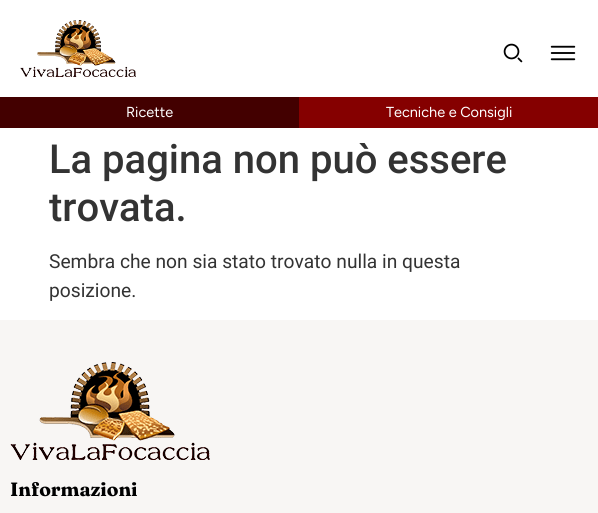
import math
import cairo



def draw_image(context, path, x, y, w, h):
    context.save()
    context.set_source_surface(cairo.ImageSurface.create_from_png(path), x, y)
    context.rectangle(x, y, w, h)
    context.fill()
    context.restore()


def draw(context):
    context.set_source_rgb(1, 1, 1)
    context.paint()
    draw_image(context, "images/1.png", 20, 20, 116, 57)
    draw_image(context, "images/2.png", 503, 43, 20, 20)
    draw_image(context, "images/3.png", 550, 45, 26, 16)
    context.set_source_rgb(67 / 255, 0, 0)
    context.rectangle(0, 97, 299, 31)
    context.fill()
    context.set_source_rgb(133 / 255, 0, 0)
    context.rectangle(299, 97, 299, 31)
    context.fill()
    context.set_source_rgb(248 / 255, 246 / 255, 244 / 255)
    context.rectangle(0, 320, 598, 193)
    context.fill()
    draw_image(context, "images/4.png", 10, 362, 200, 98)
    context.select_font_face("Figtree")
    context.set_font_size(14.5)
    context.set_source_rgb(1, 1, 1)
    context.move_to(126, 117)
    context.show_text("Ricette")
    context.move_to(386, 117)
    context.show_text("Tecniche e Consigli")
    context.select_font_face("Roboto Medium")
    context.set_font_size(40)
    context.set_source_rgb(51 / 255, 51 / 255, 51 / 255)
    context.move_to(49, 173)
    context.show_text("La pagina non può essere")
    context.move_to(49, 221)
    context.show_text("trovata.")
    context.select_font_face("Roboto")
    context.set_font_size(19.2)
    context.move_to(49, 268)
    context.show_text("Sembra che non sia stato trovato nulla in questa")
    context.move_to(49, 297)
    context.show_text("posizione.")
    context.select_font_face("Fraunces", cairo.FontSlant.NORMAL, cairo.FontWeight.BOLD)
    context.set_source_rgb(0, 0, 0)
    context.move_to(10, 496)
    context.show_text("Informazioni")


surface = cairo.ImageSurface(cairo.Format.RGB24, 598, 513)
context = cairo.Context(surface)
options = cairo.FontOptions()
options.set_hint_metrics(cairo.HintMetrics.OFF)
options.set_hint_style(cairo.HintStyle.NONE)
context.set_font_options(options)
context.set_miter_limit(4)
draw(context)
surface.write_to_png("out.png")
